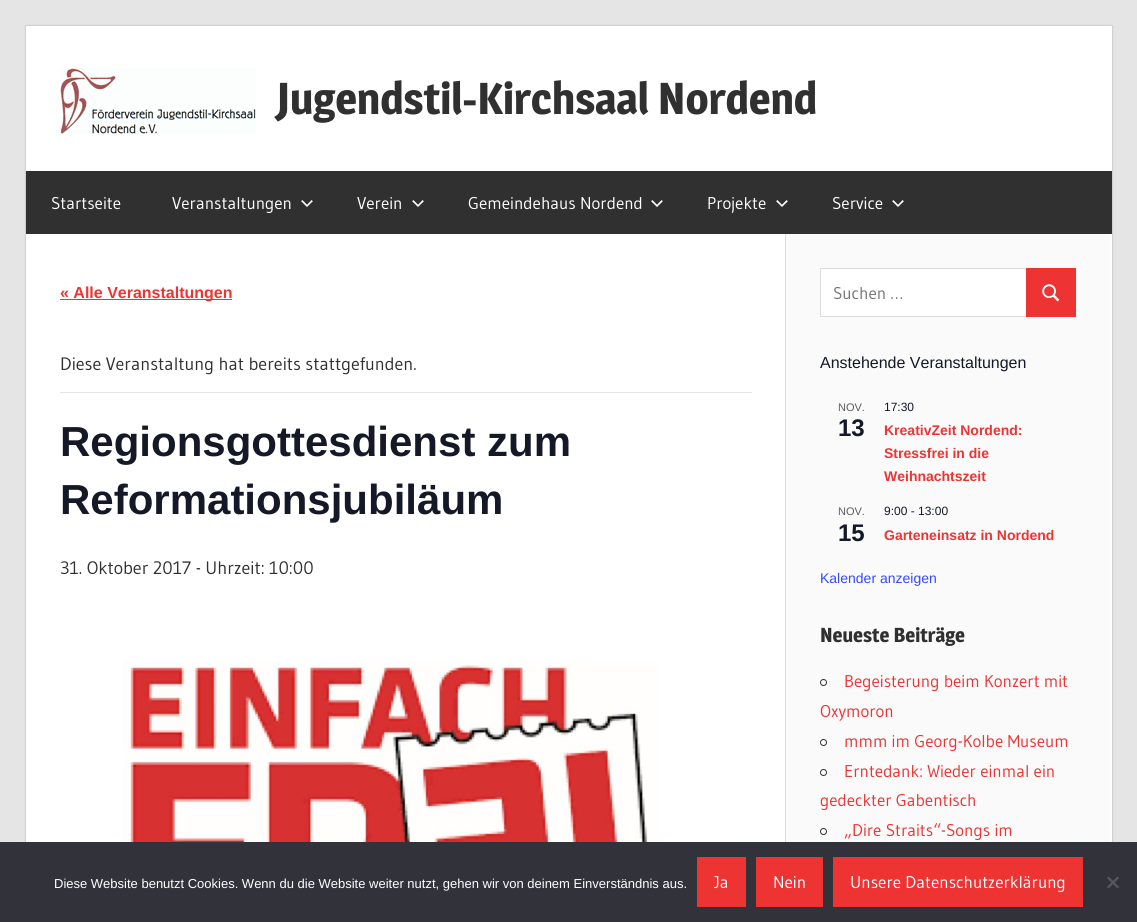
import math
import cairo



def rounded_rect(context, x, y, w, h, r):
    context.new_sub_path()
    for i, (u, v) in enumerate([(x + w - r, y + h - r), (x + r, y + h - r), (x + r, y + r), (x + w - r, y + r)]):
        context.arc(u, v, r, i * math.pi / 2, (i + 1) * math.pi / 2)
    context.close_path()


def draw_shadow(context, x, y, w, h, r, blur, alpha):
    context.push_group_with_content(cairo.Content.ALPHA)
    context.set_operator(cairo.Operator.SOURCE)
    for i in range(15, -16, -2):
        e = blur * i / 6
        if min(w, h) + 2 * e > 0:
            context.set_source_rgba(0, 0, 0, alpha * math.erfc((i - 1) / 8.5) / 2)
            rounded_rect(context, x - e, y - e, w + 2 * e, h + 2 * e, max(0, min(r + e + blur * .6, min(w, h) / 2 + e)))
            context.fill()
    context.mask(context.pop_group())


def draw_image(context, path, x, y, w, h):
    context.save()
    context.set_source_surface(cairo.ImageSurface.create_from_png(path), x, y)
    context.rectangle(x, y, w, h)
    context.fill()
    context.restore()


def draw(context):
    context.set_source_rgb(229 / 255, 229 / 255, 229 / 255)
    context.paint()
    context.set_source_rgb(170 / 255, 170 / 255, 170 / 255)
    draw_shadow(context, 26, 26, 1086, 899, 0, 1, 1)
    context.set_source_rgb(1, 1, 1)
    context.rectangle(26, 26, 1086, 816)
    context.fill()
    draw_image(context, "images/1.png", 60, 68, 196, 66)
    context.set_source_rgb(48 / 255, 48 / 255, 48 / 255)
    context.rectangle(26, 171, 1086, 63)
    context.fill()
    draw_image(context, "images/2.png", 301, 200, 12, 7)
    draw_image(context, "images/2.png", 412, 200, 12, 7)
    draw_image(context, "images/2.png", 651, 200, 12, 7)
    draw_image(context, "images/2.png", 776, 200, 12, 7)
    draw_image(context, "images/2.png", 892, 200, 12, 7)
    context.set_source_rgb(238 / 255, 51 / 255, 51 / 255)
    context.rectangle(60, 299, 172, 1)
    context.fill()
    context.set_source_rgb(228 / 255, 228 / 255, 228 / 255)
    context.rectangle(60, 392, 692, 1)
    context.fill()
    draw_image(context, "images/3.png", 123, 661, 536, 181)
    context.set_source_rgb(250 / 255, 250 / 255, 250 / 255)
    context.rectangle(786, 234, 324, 608)
    context.fill()
    context.set_source_rgb(221 / 255, 221 / 255, 221 / 255)
    context.rectangle(785, 234, 1, 608)
    context.fill()
    context.set_source_rgb(1, 1, 1)
    context.rectangle(820.5, 268.5, 206, 48)
    context.fill_preserve()
    context.set_source_rgb(221 / 255, 221 / 255, 221 / 255)
    context.set_line_width(1)
    context.stroke()
    context.set_source_rgb(238 / 255, 51 / 255, 51 / 255)
    context.rectangle(1026, 268, 50, 49)
    context.fill()
    draw_image(context, "images/4.png", 1042, 284, 18, 18)
    context.arc(823.5, 682.5, 3, 0, 2 * math.pi)
    context.set_source_rgb(48 / 255, 48 / 255, 48 / 255)
    context.stroke()
    context.arc(823.5, 742.5, 3, 0, 2 * math.pi)
    context.stroke()
    context.arc(823.5, 772.5, 3, 0, 2 * math.pi)
    context.stroke()
    context.arc(823.5, 831.5, 3, 0, 2 * math.pi)
    context.stroke()
    context.set_source_rgb(50 / 255, 50 / 255, 58 / 255)
    context.rectangle(0, 842, 1137, 80)
    context.fill()
    context.set_source_rgb(238 / 255, 51 / 255, 51 / 255)
    context.rectangle(697, 857, 49, 50)
    context.fill()
    context.rectangle(756, 857, 67, 50)
    context.fill()
    context.rectangle(833, 857, 250, 50)
    context.fill()
    context.set_source_rgb(89 / 255, 89 / 255, 93 / 255)
    context.new_path()
    context.move_to(1117.5, 876.5)
    context.line_to(1119, 878)
    context.line_to(1108.5, 888.5)
    context.line_to(1107, 887)
    context.close_path()
    context.fill()
    context.new_path()
    context.move_to(1107, 878)
    context.line_to(1108.5, 876.5)
    context.line_to(1119, 887)
    context.line_to(1117.5, 888.5)
    context.close_path()
    context.fill()
    context.select_font_face("Magra", cairo.FontSlant.NORMAL, cairo.FontWeight.BOLD)
    context.set_font_size(44)
    context.set_source_rgb(48 / 255, 48 / 255, 48 / 255)
    context.move_to(277, 114)
    context.show_text("Jugendstil-Kirchsaal Nordend")
    context.select_font_face("Gudea")
    context.set_font_size(17)
    context.set_source_rgb(1, 1, 1)
    context.move_to(51, 209)
    context.show_text("Startseite")
    context.move_to(172, 209)
    context.show_text("Veranstaltungen")
    context.move_to(357, 209)
    context.show_text("Verein")
    context.move_to(468, 209)
    context.show_text("Gemeindehaus Nordend")
    context.move_to(707, 209)
    context.show_text("Projekte")
    context.move_to(832, 209)
    context.show_text("Service")
    context.select_font_face("Liberation Sans", cairo.FontSlant.NORMAL, cairo.FontWeight.BOLD)
    context.set_font_size(16)
    context.set_source_rgb(238 / 255, 51 / 255, 51 / 255)
    context.move_to(60, 298)
    context.show_text("« Alle Veranstaltungen")
    context.select_font_face("Gudea")
    context.set_font_size(18)
    context.set_source_rgb(48 / 255, 48 / 255, 48 / 255)
    context.move_to(60, 370)
    context.show_text("Diese Veranstaltung hat bereits stattgefunden.")
    context.select_font_face("Liberation Sans", cairo.FontSlant.NORMAL, cairo.FontWeight.BOLD)
    context.set_font_size(42)
    context.set_source_rgb(20 / 255, 24 / 255, 39 / 255)
    context.move_to(60, 456)
    context.show_text("Regionsgottesdienst zum")
    context.move_to(60, 514)
    context.show_text("Reformationsjubiläum")
    context.select_font_face("Gudea")
    context.set_font_size(18)
    context.set_source_rgb(48 / 255, 48 / 255, 48 / 255)
    context.move_to(60, 574)
    context.show_text("31. Oktober 2017 - Uhrzeit: 10:00")
    context.set_font_size(17)
    context.set_source_rgb(117 / 255, 117 / 255, 117 / 255)
    context.move_to(833, 299)
    context.show_text("Suchen …")
    context.select_font_face("Liberation Sans")
    context.set_font_size(16)
    context.set_source_rgb(20 / 255, 24 / 255, 39 / 255)
    context.move_to(820, 368)
    context.show_text("Anstehende Veranstaltungen")
    context.set_font_size(11)
    context.set_source_rgb(93 / 255, 93 / 255, 93 / 255)
    context.move_to(838, 411)
    context.show_text("NOV.")
    context.select_font_face("Liberation Sans", cairo.FontSlant.NORMAL, cairo.FontWeight.BOLD)
    context.set_font_size(24)
    context.set_source_rgb(20 / 255, 24 / 255, 39 / 255)
    context.move_to(838, 436)
    context.show_text("13")
    context.select_font_face("Liberation Sans")
    context.set_font_size(12)
    context.move_to(884, 411)
    context.show_text("17:30")
    context.select_font_face("Liberation Sans", cairo.FontSlant.NORMAL, cairo.FontWeight.BOLD)
    context.set_font_size(14)
    context.set_source_rgb(238 / 255, 51 / 255, 51 / 255)
    context.move_to(884, 435)
    context.show_text("KreativZeit Nordend:")
    context.move_to(884, 458)
    context.show_text("Stressfrei in die")
    context.move_to(884, 481)
    context.show_text("Weihnachtszeit")
    context.select_font_face("Liberation Sans")
    context.set_font_size(11)
    context.set_source_rgb(93 / 255, 93 / 255, 93 / 255)
    context.move_to(838, 515)
    context.show_text("NOV.")
    context.select_font_face("Liberation Sans", cairo.FontSlant.NORMAL, cairo.FontWeight.BOLD)
    context.set_font_size(24)
    context.set_source_rgb(20 / 255, 24 / 255, 39 / 255)
    context.move_to(838, 541)
    context.show_text("15")
    context.select_font_face("Liberation Sans")
    context.set_font_size(12)
    context.move_to(884, 515)
    context.show_text("9:00 - 13:00")
    context.select_font_face("Liberation Sans", cairo.FontSlant.NORMAL, cairo.FontWeight.BOLD)
    context.set_font_size(14)
    context.set_source_rgb(238 / 255, 51 / 255, 51 / 255)
    context.move_to(884, 540)
    context.show_text("Garteneinsatz in Nordend")
    context.select_font_face("Liberation Sans")
    context.set_source_rgb(51 / 255, 74 / 255, 1)
    context.move_to(820, 583)
    context.show_text("Kalender anzeigen")
    context.select_font_face("Magra", cairo.FontSlant.NORMAL, cairo.FontWeight.BOLD)
    context.set_font_size(20)
    context.set_source_rgb(48 / 255, 48 / 255, 48 / 255)
    context.move_to(820, 642)
    context.show_text("Neueste Beiträge")
    context.select_font_face("Gudea")
    context.set_font_size(17)
    context.set_source_rgb(238 / 255, 51 / 255, 51 / 255)
    context.move_to(844, 687)
    context.show_text("Begeisterung beim Konzert mit")
    context.move_to(820, 717)
    context.show_text("Oxymoron")
    context.move_to(844, 747)
    context.show_text("mmm im Georg-Kolbe Museum")
    context.move_to(844, 777)
    context.show_text("Erntedank: Wieder einmal ein")
    context.move_to(820, 806)
    context.show_text("gedeckter Gabentisch")
    context.move_to(844, 836)
    context.show_text("„Dire Straits“-Songs im")
    context.select_font_face("Liberation Sans")
    context.set_font_size(13)
    context.set_source_rgb(1, 1, 1)
    context.move_to(54, 888)
    context.show_text("Diese Website benutzt Cookies. Wenn du die Website weiter nutzt, gehen wir von deinem Einverständnis aus.")
    context.select_font_face("Gudea")
    context.set_font_size(17)
    context.move_to(714, 888)
    context.show_text("Ja")
    context.move_to(773, 888)
    context.show_text("Nein")
    context.move_to(850, 888)
    context.show_text("Unsere Datenschutzerklärung")


surface = cairo.ImageSurface(cairo.Format.RGB24, 1137, 922)
context = cairo.Context(surface)
options = cairo.FontOptions()
options.set_hint_metrics(cairo.HintMetrics.OFF)
options.set_hint_style(cairo.HintStyle.NONE)
context.set_font_options(options)
context.set_miter_limit(4)
draw(context)
surface.write_to_png("out.png")
